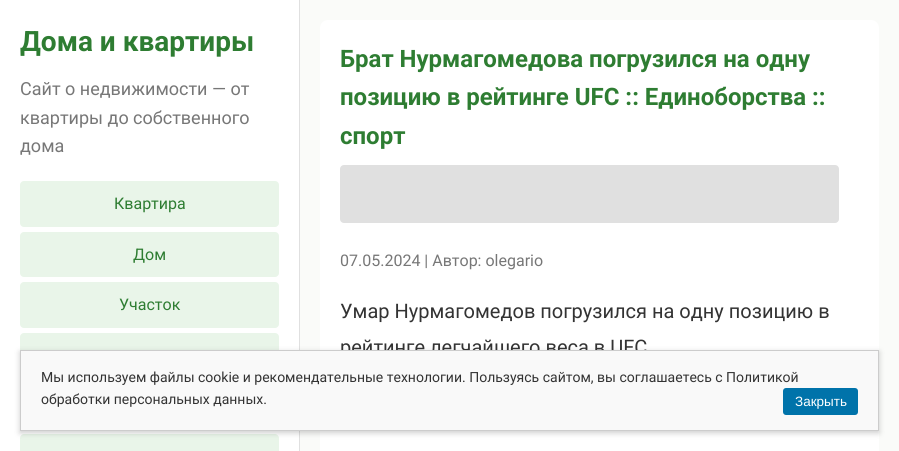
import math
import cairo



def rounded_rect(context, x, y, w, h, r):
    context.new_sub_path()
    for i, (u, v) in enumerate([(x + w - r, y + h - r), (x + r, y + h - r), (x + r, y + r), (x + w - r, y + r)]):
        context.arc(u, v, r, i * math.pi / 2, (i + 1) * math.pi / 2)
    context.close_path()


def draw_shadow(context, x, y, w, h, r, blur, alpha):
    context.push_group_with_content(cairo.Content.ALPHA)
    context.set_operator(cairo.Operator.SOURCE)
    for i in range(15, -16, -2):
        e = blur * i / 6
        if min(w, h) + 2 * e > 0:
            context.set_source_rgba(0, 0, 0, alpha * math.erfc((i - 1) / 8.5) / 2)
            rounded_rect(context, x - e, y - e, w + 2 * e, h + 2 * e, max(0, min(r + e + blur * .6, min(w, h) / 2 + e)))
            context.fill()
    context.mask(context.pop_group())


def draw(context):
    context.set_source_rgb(250 / 255, 251 / 255, 249 / 255)
    context.paint()
    context.set_source_rgb(1, 1, 1)
    context.rectangle(0, 0, 299, 451)
    context.fill()
    context.set_source_rgb(224 / 255, 224 / 255, 224 / 255)
    context.rectangle(299, 0, 1, 451)
    context.fill()
    context.set_source_rgb(233 / 255, 245 / 255, 233 / 255)
    rounded_rect(context, 20, 181, 259, 46, 4)
    context.fill()
    rounded_rect(context, 20, 232, 259, 45, 4)
    context.fill()
    rounded_rect(context, 20, 282, 259, 46, 4)
    context.fill()
    rounded_rect(context, 20, 333, 259, 46, 4)
    context.fill()
    context.new_path()
    context.move_to(24, 434)
    context.line_to(275, 434)
    context.curve_to(277, 434, 279, 436, 279, 438)
    context.line_to(279, 451)
    context.line_to(20, 451)
    context.line_to(20, 438)
    context.curve_to(20, 436, 22, 434, 24, 434)
    context.close_path()
    context.fill()
    context.set_source_rgb(1, 1, 1)
    rounded_rect(context, 320, 20, 559, 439, 8)
    context.fill()
    context.set_source_rgb(224 / 255, 224 / 255, 224 / 255)
    rounded_rect(context, 340, 165, 499, 58, 4)
    context.fill()
    context.set_source_rgb(0, 0, 0)
    draw_shadow(context, 20, 352, 859, 81, 0, 3, 0.2)
    context.select_font_face("Roboto", cairo.FontSlant.NORMAL, cairo.FontWeight.BOLD)
    context.set_font_size(28)
    context.set_source_rgb(46 / 255, 125 / 255, 50 / 255)
    context.move_to(20, 51)
    context.show_text("Дома и квартиры")
    context.select_font_face("Roboto")
    context.set_font_size(18)
    context.set_source_rgb(119 / 255, 119 / 255, 119 / 255)
    context.move_to(20, 95)
    context.show_text("Сайт о недвижимости — от")
    context.move_to(20, 124)
    context.show_text("квартиры до собственного")
    context.move_to(20, 152)
    context.show_text("дома")
    context.set_font_size(16)
    context.set_source_rgb(46 / 255, 125 / 255, 50 / 255)
    context.move_to(114, 209)
    context.show_text("Квартира")
    context.move_to(133, 260)
    context.show_text("Дом")
    context.move_to(119, 310)
    context.show_text("Участок")
    context.select_font_face("Roboto", cairo.FontSlant.NORMAL, cairo.FontWeight.BOLD)
    context.set_font_size(24)
    context.move_to(340, 67)
    context.show_text("Брат Нурмагомедова погрузился на одну")
    context.move_to(340, 105)
    context.show_text("позицию в рейтинге UFC :: Единоборства ::")
    context.move_to(340, 144)
    context.show_text("спорт")
    context.select_font_face("Roboto")
    context.set_font_size(16)
    context.set_source_rgb(119 / 255, 119 / 255, 119 / 255)
    context.move_to(340, 266)
    context.show_text("07.05.2024 | Автор: olegario")
    context.set_font_size(20)
    context.set_source_rgb(51 / 255, 51 / 255, 51 / 255)
    context.move_to(340, 318)
    context.show_text("Умар Нурмагомедов погрузился на одну позицию в")
    context.move_to(340, 354)
    context.show_text("рейтинге легчайшего веса в UFC")
    context.set_source_rgb(249 / 255, 249 / 255, 249 / 255)
    context.rectangle(20.5, 350.5, 858, 80)
    context.fill_preserve()
    context.set_source_rgb(204 / 255, 204 / 255, 204 / 255)
    context.set_line_width(1)
    context.stroke()
    context.set_font_size(14)
    context.set_source_rgb(51 / 255, 51 / 255, 51 / 255)
    context.move_to(41, 382)
    context.show_text("Мы используем файлы cookie и рекомендательные технологии. Пользуясь сайтом, вы соглашаетесь с Политикой")
    context.move_to(41, 404)
    context.show_text("обработки персональных данных.")
    context.set_source_rgb(0, 115 / 255, 170 / 255)
    rounded_rect(context, 783, 388, 75, 27, 3)
    context.fill()
    context.select_font_face("Liberation Sans")
    context.set_font_size(13.5)
    context.set_source_rgb(1, 1, 1)
    context.move_to(795, 406)
    context.show_text("Закрыть")


surface = cairo.ImageSurface(cairo.Format.RGB24, 899, 451)
context = cairo.Context(surface)
options = cairo.FontOptions()
options.set_hint_metrics(cairo.HintMetrics.OFF)
options.set_hint_style(cairo.HintStyle.NONE)
context.set_font_options(options)
context.set_miter_limit(4)
draw(context)
surface.write_to_png("out.png")
